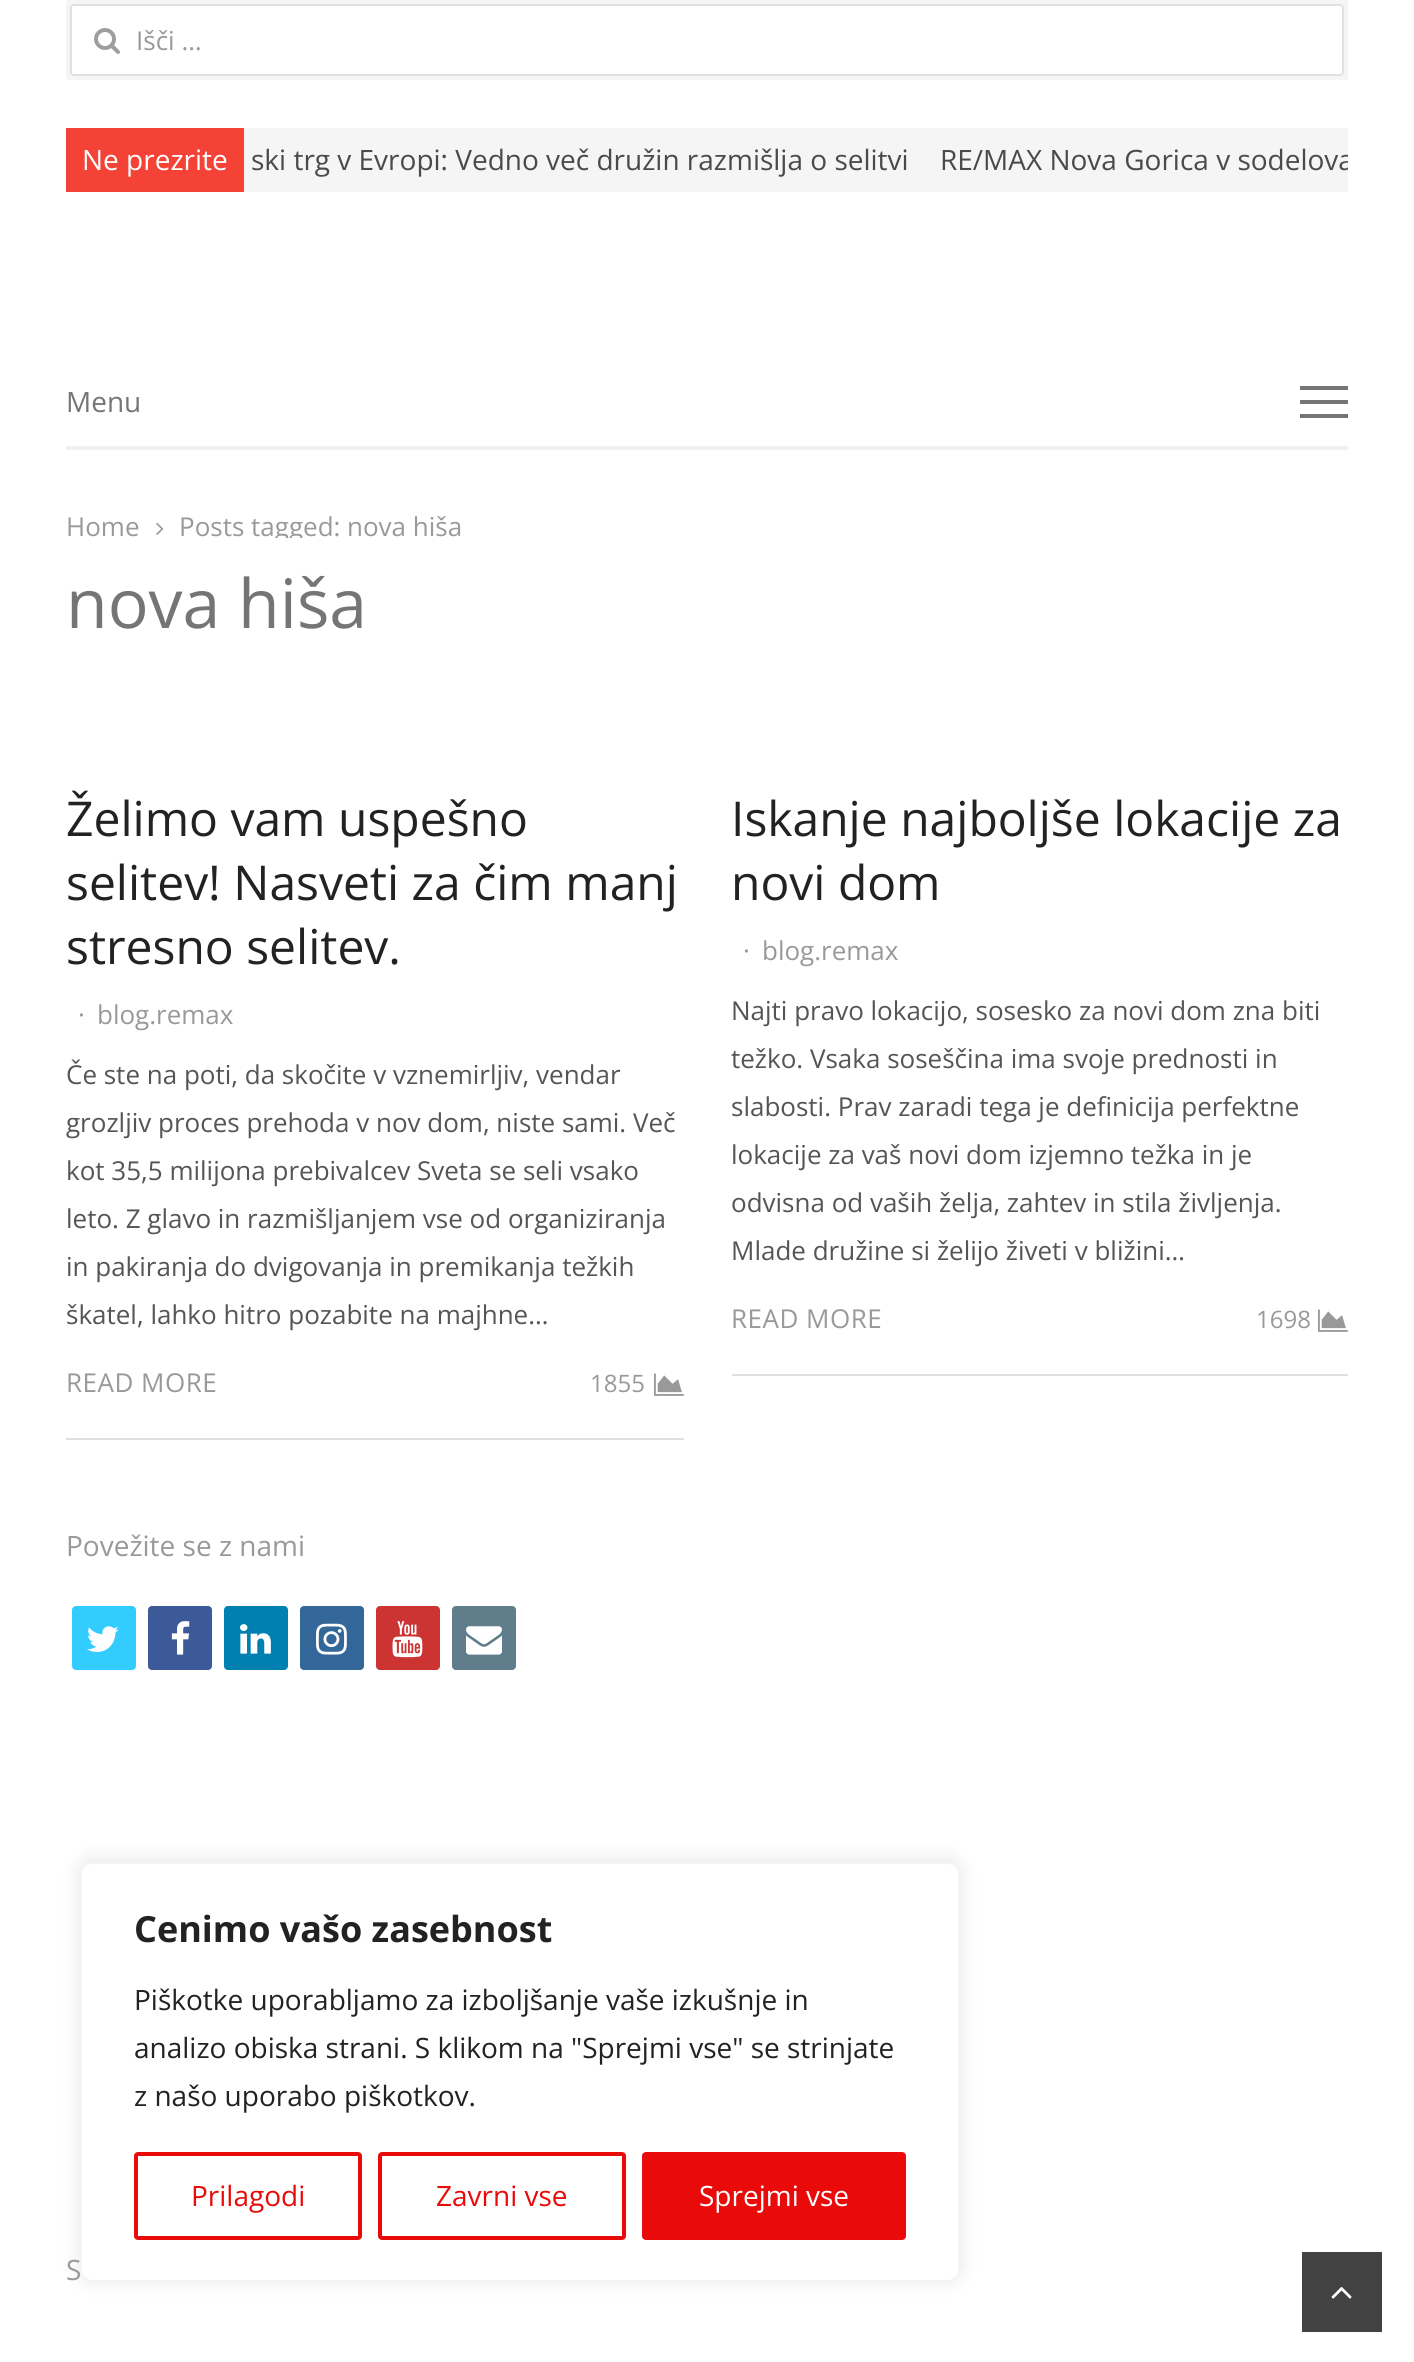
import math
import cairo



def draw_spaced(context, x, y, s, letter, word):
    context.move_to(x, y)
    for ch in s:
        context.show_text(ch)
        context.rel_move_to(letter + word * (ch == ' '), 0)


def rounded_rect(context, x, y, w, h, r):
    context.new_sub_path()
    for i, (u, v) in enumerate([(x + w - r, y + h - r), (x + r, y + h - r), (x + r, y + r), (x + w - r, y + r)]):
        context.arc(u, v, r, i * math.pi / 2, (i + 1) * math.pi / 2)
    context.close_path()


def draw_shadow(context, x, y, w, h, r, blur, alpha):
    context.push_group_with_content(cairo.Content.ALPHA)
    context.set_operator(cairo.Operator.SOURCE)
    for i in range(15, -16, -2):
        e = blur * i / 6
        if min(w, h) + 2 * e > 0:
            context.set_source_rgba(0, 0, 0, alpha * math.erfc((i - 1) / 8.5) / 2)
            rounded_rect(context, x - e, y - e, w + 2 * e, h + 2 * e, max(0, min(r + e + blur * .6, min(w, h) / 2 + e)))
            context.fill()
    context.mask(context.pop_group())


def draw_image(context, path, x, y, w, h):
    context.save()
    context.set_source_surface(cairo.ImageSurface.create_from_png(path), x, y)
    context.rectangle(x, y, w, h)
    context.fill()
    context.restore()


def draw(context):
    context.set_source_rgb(1, 1, 1)
    context.paint()
    context.set_source_rgb(245 / 255, 245 / 255, 245 / 255)
    context.rectangle(66, 0, 1282, 80)
    context.fill()
    context.set_source_rgb(1, 1, 1)
    rounded_rect(context, 70, 4, 1274, 72, 4)
    context.fill()
    rounded_rect(context, 71, 5, 1272, 70, 3)
    context.set_source_rgba(0, 0, 0, 0.12)
    context.stroke()
    draw_image(context, "images/1.png", 94, 28, 26, 26)
    context.set_source_rgb(244 / 255, 67 / 255, 54 / 255)
    context.rectangle(66, 128, 178, 64)
    context.fill()
    context.set_source_rgb(245 / 255, 245 / 255, 245 / 255)
    context.rectangle(244, 128, 1104, 64)
    context.fill()
    context.set_source_rgb(240 / 255, 240 / 255, 240 / 255)
    context.rectangle(66, 446, 1282, 4)
    context.fill()
    context.set_source_rgb(117 / 255, 117 / 255, 117 / 255)
    context.rectangle(1300, 386, 48, 4)
    context.fill()
    context.rectangle(1300, 400, 48, 4)
    context.fill()
    context.rectangle(1300, 414, 48, 4)
    context.fill()
    draw_image(context, "images/2.png", 156, 522, 8, 13)
    draw_image(context, "images/3.png", 654, 1373, 30, 23)
    context.set_source_rgb(224 / 255, 224 / 255, 224 / 255)
    context.rectangle(66, 1438, 618, 2)
    context.fill()
    draw_image(context, "images/3.png", 1318, 1309, 30, 23)
    context.rectangle(732, 1374, 616, 2)
    context.fill()
    context.set_source_rgb(51 / 255, 204 / 255, 1)
    rounded_rect(context, 72, 1606, 64, 64, 4)
    context.fill()
    draw_image(context, "images/4.png", 87, 1626, 32, 26)
    context.set_source_rgb(60 / 255, 90 / 255, 152 / 255)
    rounded_rect(context, 148, 1606, 64, 64, 4)
    context.fill()
    draw_image(context, "images/5.png", 171, 1621, 19, 34)
    context.set_source_rgb(0, 127 / 255, 177 / 255)
    rounded_rect(context, 224, 1606, 64, 64, 4)
    context.fill()
    draw_image(context, "images/6.png", 240, 1624, 31, 30)
    context.set_source_rgb(51 / 255, 102 / 255, 153 / 255)
    rounded_rect(context, 300, 1606, 64, 64, 4)
    context.fill()
    draw_image(context, "images/7.png", 316, 1623, 31, 32)
    context.set_source_rgb(204 / 255, 51 / 255, 51 / 255)
    rounded_rect(context, 376, 1606, 64, 64, 4)
    context.fill()
    draw_image(context, "images/8.png", 392, 1621, 31, 37)
    context.set_source_rgb(96 / 255, 125 / 255, 139 / 255)
    rounded_rect(context, 452, 1606, 64, 64, 4)
    context.fill()
    draw_image(context, "images/9.png", 466, 1626, 36, 29)
    context.set_source_rgb(172 / 255, 171 / 255, 171 / 255)
    draw_shadow(context, 80, 1860, 880, 420, 12, 10, 0.3)
    context.set_source_rgb(1, 1, 1)
    rounded_rect(context, 81, 1863, 878, 418, 11)
    context.fill_preserve()
    context.set_source_rgb(244 / 255, 244 / 255, 244 / 255)
    context.stroke()
    rounded_rect(context, 136, 2154, 224, 84, 2)
    context.set_source_rgb(233 / 255, 10 / 255, 10 / 255)
    context.set_line_width(4)
    context.stroke()
    rounded_rect(context, 380, 2154, 244, 84, 2)
    context.stroke()
    rounded_rect(context, 644, 2154, 260, 84, 2)
    context.fill_preserve()
    context.stroke()
    context.set_source_rgb(66 / 255, 66 / 255, 66 / 255)
    context.rectangle(1302, 2252, 80, 80)
    context.fill()
    draw_image(context, "images/10.png", 1331, 2287, 21, 12)
    context.select_font_face("Open Sans")
    context.set_font_size(26)
    context.set_source_rgb(153 / 255, 153 / 255, 153 / 255)
    context.move_to(136, 50)
    context.show_text("Išči …")
    context.set_font_size(28)
    context.set_source_rgb(1, 1, 1)
    context.move_to(82, 170)
    context.show_text("Ne prezrite")
    context.set_source_rgb(74 / 255, 74 / 255, 74 / 255)
    context.move_to(251, 170)
    context.show_text("ski trg v Evropi: Vedno več družin razmišlja o selitvi")
    context.save()
    context.rectangle(66, 128, 1282, 64)
    context.clip()
    context.move_to(940, 170)
    context.show_text("RE/MAX Nova Gorica v sodelova")
    context.restore()
    context.set_source_rgb(117 / 255, 117 / 255, 117 / 255)
    context.move_to(66, 412)
    context.show_text("Menu")
    context.set_font_size(26)
    context.set_source_rgb(153 / 255, 153 / 255, 153 / 255)
    context.move_to(66, 536)
    context.show_text("Home")
    context.save()
    context.rectangle(66, 498, 1282, 40)
    context.clip()
    context.move_to(179, 536)
    context.show_text("Posts tagged:")
    context.restore()
    context.move_to(347, 536)
    context.show_text("nova hiša")
    context.set_font_size(68)
    context.set_source_rgb(117 / 255, 117 / 255, 117 / 255)
    context.move_to(66, 628)
    context.show_text("nova hiša")
    context.set_font_size(48)
    context.set_source_rgb(34 / 255, 34 / 255, 34 / 255)
    context.move_to(66, 836)
    context.show_text("Želimo vam uspešno")
    context.move_to(66, 900)
    context.show_text("selitev! Nasveti za čim manj")
    context.move_to(66, 964)
    context.show_text("stresno selitev.")
    context.set_font_size(26)
    context.set_source_rgb(153 / 255, 153 / 255, 153 / 255)
    context.move_to(78, 1024)
    context.show_text("·")
    context.move_to(97, 1024)
    context.show_text("blog.remax")
    context.set_source_rgb(85 / 255, 85 / 255, 85 / 255)
    context.move_to(66, 1084)
    context.show_text("Če ste na poti, da skočite v vznemirljiv, vendar")
    context.move_to(66, 1132)
    context.show_text("grozljiv proces prehoda v nov dom, niste sami. Več")
    context.move_to(66, 1180)
    context.show_text("kot 35,5 milijona prebivalcev Sveta se seli vsako")
    context.move_to(66, 1228)
    context.show_text("leto. Z glavo in razmišljanjem vse od organiziranja")
    context.move_to(66, 1276)
    context.show_text("in pakiranja do dvigovanja in premikanja težkih")
    context.move_to(66, 1324)
    context.show_text("škatel, lahko hitro pozabite na majhne…")
    context.set_source_rgb(153 / 255, 153 / 255, 153 / 255)
    draw_spaced(context, 66, 1392, "READ MORE", 0.5, 0)
    context.set_font_size(24)
    context.move_to(590, 1392)
    context.show_text("1855")
    context.set_font_size(48)
    context.set_source_rgb(34 / 255, 34 / 255, 34 / 255)
    context.move_to(731, 836)
    context.show_text("Iskanje najboljše lokacije za")
    context.move_to(731, 900)
    context.show_text("novi dom")
    context.set_font_size(26)
    context.set_source_rgb(153 / 255, 153 / 255, 153 / 255)
    context.move_to(743, 960)
    context.show_text("·")
    context.move_to(762, 960)
    context.show_text("blog.remax")
    context.set_source_rgb(85 / 255, 85 / 255, 85 / 255)
    context.move_to(731, 1020)
    context.show_text("Najti pravo lokacijo, sosesko za novi dom zna biti")
    context.move_to(731, 1068)
    context.show_text("težko. Vsaka soseščina ima svoje prednosti in")
    context.move_to(731, 1116)
    context.show_text("slabosti. Prav zaradi tega je definicija perfektne")
    context.move_to(731, 1164)
    context.show_text("lokacije za vaš novi dom izjemno težka in je")
    context.move_to(731, 1212)
    context.show_text("odvisna od vaših želja, zahtev in stila življenja.")
    context.move_to(731, 1260)
    context.show_text("Mlade družine si želijo živeti v bližini…")
    context.set_source_rgb(153 / 255, 153 / 255, 153 / 255)
    draw_spaced(context, 731, 1328, "READ MORE", 0.5, 0)
    context.set_font_size(24)
    context.move_to(1256, 1328)
    context.show_text("1698")
    context.set_font_size(28)
    context.move_to(66, 1556)
    context.show_text("Povežite se z nami")
    context.move_to(66, 2280)
    context.show_text("S")
    context.select_font_face("Open Sans", cairo.FontSlant.NORMAL, cairo.FontWeight.BOLD)
    context.set_font_size(36)
    context.set_source_rgb(34 / 255, 34 / 255, 34 / 255)
    context.move_to(134, 1942)
    context.show_text("Cenimo vašo zasebnost")
    context.select_font_face("Open Sans")
    context.set_font_size(28)
    context.move_to(134, 2010)
    context.show_text("Piškotke uporabljamo za izboljšanje vaše izkušnje in")
    context.move_to(134, 2058)
    context.show_text("analizo obiska strani. S klikom na \"Sprejmi vse\" se strinjate")
    context.move_to(134, 2106)
    context.show_text("z našo uporabo piškotkov.")
    context.set_source_rgb(233 / 255, 10 / 255, 10 / 255)
    context.move_to(191, 2206)
    context.show_text("Prilagodi")
    context.move_to(436, 2206)
    context.show_text("Zavrni vse")
    context.set_source_rgb(1, 1, 1)
    context.move_to(699, 2206)
    context.show_text("Sprejmi vse")


surface = cairo.ImageSurface(cairo.Format.RGB24, 1414, 2362)
context = cairo.Context(surface)
options = cairo.FontOptions()
options.set_hint_metrics(cairo.HintMetrics.OFF)
options.set_hint_style(cairo.HintStyle.NONE)
context.set_font_options(options)
context.set_miter_limit(4)
draw(context)
surface.write_to_png("out.png")
